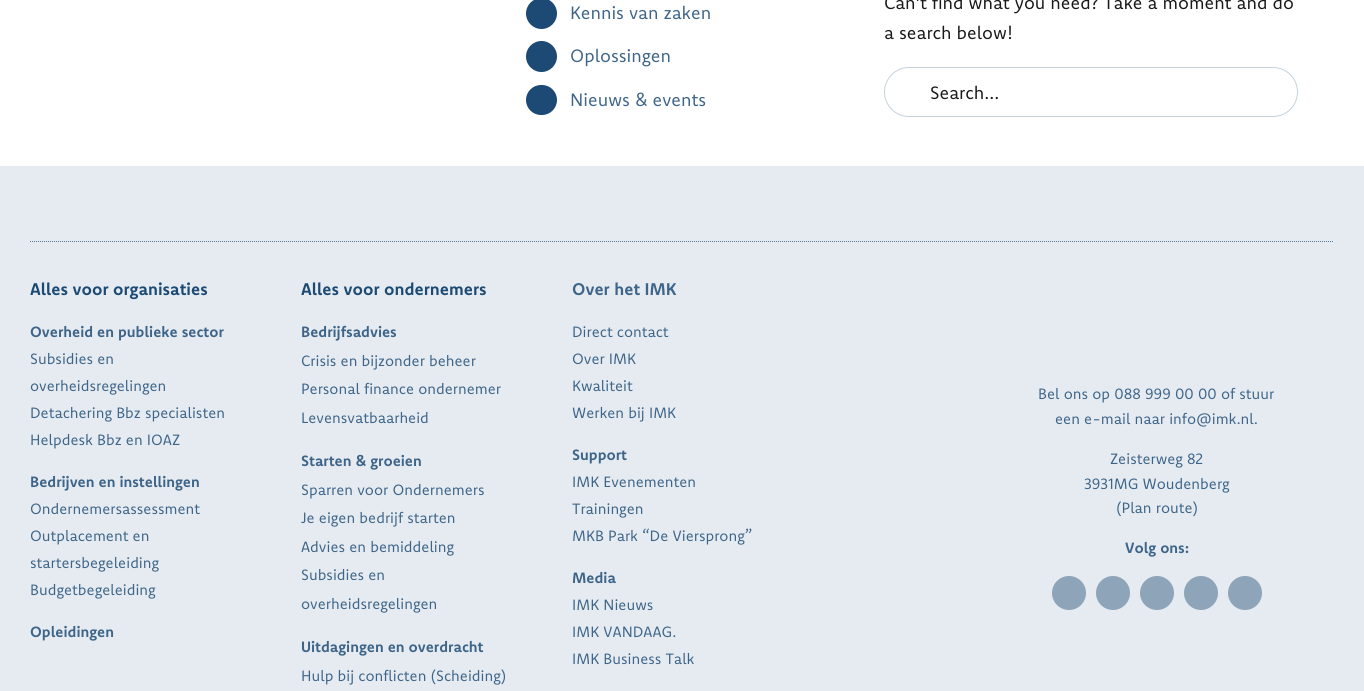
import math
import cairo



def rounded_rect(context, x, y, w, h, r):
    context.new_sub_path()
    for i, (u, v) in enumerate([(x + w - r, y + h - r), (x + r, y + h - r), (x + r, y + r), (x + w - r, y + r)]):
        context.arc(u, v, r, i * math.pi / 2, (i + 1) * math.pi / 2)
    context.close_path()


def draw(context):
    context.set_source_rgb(1, 1, 1)
    context.paint()
    context.set_source_rgb(28 / 255, 74 / 255, 116 / 255)
    context.arc(541.5, 13.5, 15.5, 0, 2 * math.pi)
    context.fill()
    context.arc(541.5, 56.5, 15.5, 0, 2 * math.pi)
    context.fill()
    rounded_rect(context, 526, 85, 31, 30, 15)
    context.fill()
    rounded_rect(context, 884.5, 67.5, 413, 49, 24.5)
    context.set_source_rgb(198 / 255, 209 / 255, 220 / 255)
    context.set_line_width(1)
    context.stroke()
    context.set_source_rgb(229 / 255, 235 / 255, 240 / 255)
    context.rectangle(0, 166, 1364, 525)
    context.fill()
    context.new_path()
    context.move_to(30, 241.5)
    context.line_to(1334, 241.5)
    context.set_source_rgb(85 / 255, 119 / 255, 151 / 255)
    context.set_dash([1, 1])
    context.stroke()
    context.set_source_rgb(141 / 255, 164 / 255, 185 / 255)
    context.arc(1069, 593, 17, 0, 2 * math.pi)
    context.fill()
    context.arc(1113, 593, 17, 0, 2 * math.pi)
    context.fill()
    context.arc(1157, 593, 17, 0, 2 * math.pi)
    context.fill()
    context.arc(1201, 593, 17, 0, 2 * math.pi)
    context.fill()
    context.arc(1245, 593, 17, 0, 2 * math.pi)
    context.fill()
    context.select_font_face("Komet")
    context.set_font_size(18)
    context.set_source_rgb(62 / 255, 101 / 255, 137 / 255)
    context.move_to(570, 19)
    context.show_text("Kennis van zaken")
    context.move_to(570, 62)
    context.show_text("Oplossingen")
    context.move_to(570, 106)
    context.show_text("Nieuws & events")
    context.set_source_rgb(25 / 255, 25 / 255, 25 / 255)
    context.move_to(884, 9)
    context.show_text("Can't find what you need? Take a moment and do")
    context.move_to(884, 39)
    context.show_text("a search below!")
    context.move_to(930, 99)
    context.show_text("Search...")
    context.select_font_face("Komet", cairo.FontSlant.NORMAL, cairo.FontWeight.BOLD)
    context.set_font_size(17)
    context.set_source_rgb(28 / 255, 74 / 255, 116 / 255)
    context.move_to(30, 295)
    context.show_text("Alles voor organisaties")
    context.set_font_size(15)
    context.set_source_rgb(62 / 255, 101 / 255, 137 / 255)
    context.move_to(30, 337)
    context.show_text("Overheid en publieke sector")
    context.select_font_face("Komet")
    context.move_to(30, 364)
    context.show_text("Subsidies en")
    context.move_to(30, 391)
    context.show_text("overheidsregelingen")
    context.move_to(30, 418)
    context.show_text("Detachering Bbz specialisten")
    context.move_to(30, 445)
    context.show_text("Helpdesk Bbz en IOAZ")
    context.select_font_face("Komet", cairo.FontSlant.NORMAL, cairo.FontWeight.BOLD)
    context.move_to(30, 487)
    context.show_text("Bedrijven en instellingen")
    context.select_font_face("Komet")
    context.move_to(30, 514)
    context.show_text("Ondernemersassessment")
    context.move_to(30, 541)
    context.show_text("Outplacement en")
    context.move_to(30, 568)
    context.show_text("startersbegeleiding")
    context.move_to(30, 595)
    context.show_text("Budgetbegeleiding")
    context.select_font_face("Komet", cairo.FontSlant.NORMAL, cairo.FontWeight.BOLD)
    context.move_to(30, 637)
    context.show_text("Opleidingen")
    context.set_font_size(17)
    context.set_source_rgb(28 / 255, 74 / 255, 116 / 255)
    context.move_to(301, 295)
    context.show_text("Alles voor ondernemers")
    context.set_font_size(15)
    context.set_source_rgb(62 / 255, 101 / 255, 137 / 255)
    context.move_to(301, 337)
    context.show_text("Bedrijfsadvies")
    context.select_font_face("Komet")
    context.move_to(301, 366)
    context.show_text("Crisis en bijzonder beheer")
    context.move_to(301, 394)
    context.show_text("Personal finance ondernemer")
    context.move_to(301, 423)
    context.show_text("Levensvatbaarheid")
    context.select_font_face("Komet", cairo.FontSlant.NORMAL, cairo.FontWeight.BOLD)
    context.move_to(301, 466)
    context.show_text("Starten & groeien")
    context.select_font_face("Komet")
    context.move_to(301, 495)
    context.show_text("Sparren voor Ondernemers")
    context.move_to(301, 523)
    context.show_text("Je eigen bedrijf starten")
    context.move_to(301, 552)
    context.show_text("Advies en bemiddeling")
    context.move_to(301, 580)
    context.show_text("Subsidies en")
    context.move_to(301, 609)
    context.show_text("overheidsregelingen")
    context.select_font_face("Komet", cairo.FontSlant.NORMAL, cairo.FontWeight.BOLD)
    context.move_to(301, 652)
    context.show_text("Uitdagingen en overdracht")
    context.select_font_face("Komet")
    context.move_to(301, 681)
    context.show_text("Hulp bij conflicten (Scheiding)")
    context.select_font_face("Komet", cairo.FontSlant.NORMAL, cairo.FontWeight.BOLD)
    context.set_font_size(17)
    context.move_to(572, 295)
    context.show_text("Over het IMK")
    context.select_font_face("Komet")
    context.set_font_size(15)
    context.move_to(572, 337)
    context.show_text("Direct contact")
    context.move_to(572, 364)
    context.show_text("Over IMK")
    context.move_to(572, 391)
    context.show_text("Kwaliteit")
    context.move_to(572, 418)
    context.show_text("Werken bij IMK")
    context.select_font_face("Komet", cairo.FontSlant.NORMAL, cairo.FontWeight.BOLD)
    context.move_to(572, 460)
    context.show_text("Support")
    context.select_font_face("Komet")
    context.move_to(572, 487)
    context.show_text("IMK Evenementen")
    context.move_to(572, 514)
    context.show_text("Trainingen")
    context.move_to(572, 541)
    context.show_text("MKB Park “De Viersprong”")
    context.select_font_face("Komet", cairo.FontSlant.NORMAL, cairo.FontWeight.BOLD)
    context.move_to(572, 583)
    context.show_text("Media")
    context.select_font_face("Komet")
    context.move_to(572, 610)
    context.show_text("IMK Nieuws")
    context.move_to(572, 637)
    context.show_text("IMK VANDAAG.")
    context.move_to(572, 664)
    context.show_text("IMK Business Talk")
    context.move_to(1038, 399)
    context.show_text("Bel ons op 088 999 00 00 of stuur")
    context.move_to(1055, 424)
    context.show_text("een e-mail naar info@imk.nl.")
    context.move_to(1110, 464)
    context.show_text("Zeisterweg 82")
    context.move_to(1084, 489)
    context.show_text("3931MG Woudenberg")
    context.move_to(1116, 513)
    context.show_text("(Plan route)")
    context.select_font_face("Komet", cairo.FontSlant.NORMAL, cairo.FontWeight.BOLD)
    context.move_to(1125, 553)
    context.show_text("Volg ons:")


surface = cairo.ImageSurface(cairo.Format.RGB24, 1364, 691)
context = cairo.Context(surface)
options = cairo.FontOptions()
options.set_hint_metrics(cairo.HintMetrics.OFF)
options.set_hint_style(cairo.HintStyle.NONE)
context.set_font_options(options)
context.set_miter_limit(4)
draw(context)
surface.write_to_png("out.png")
